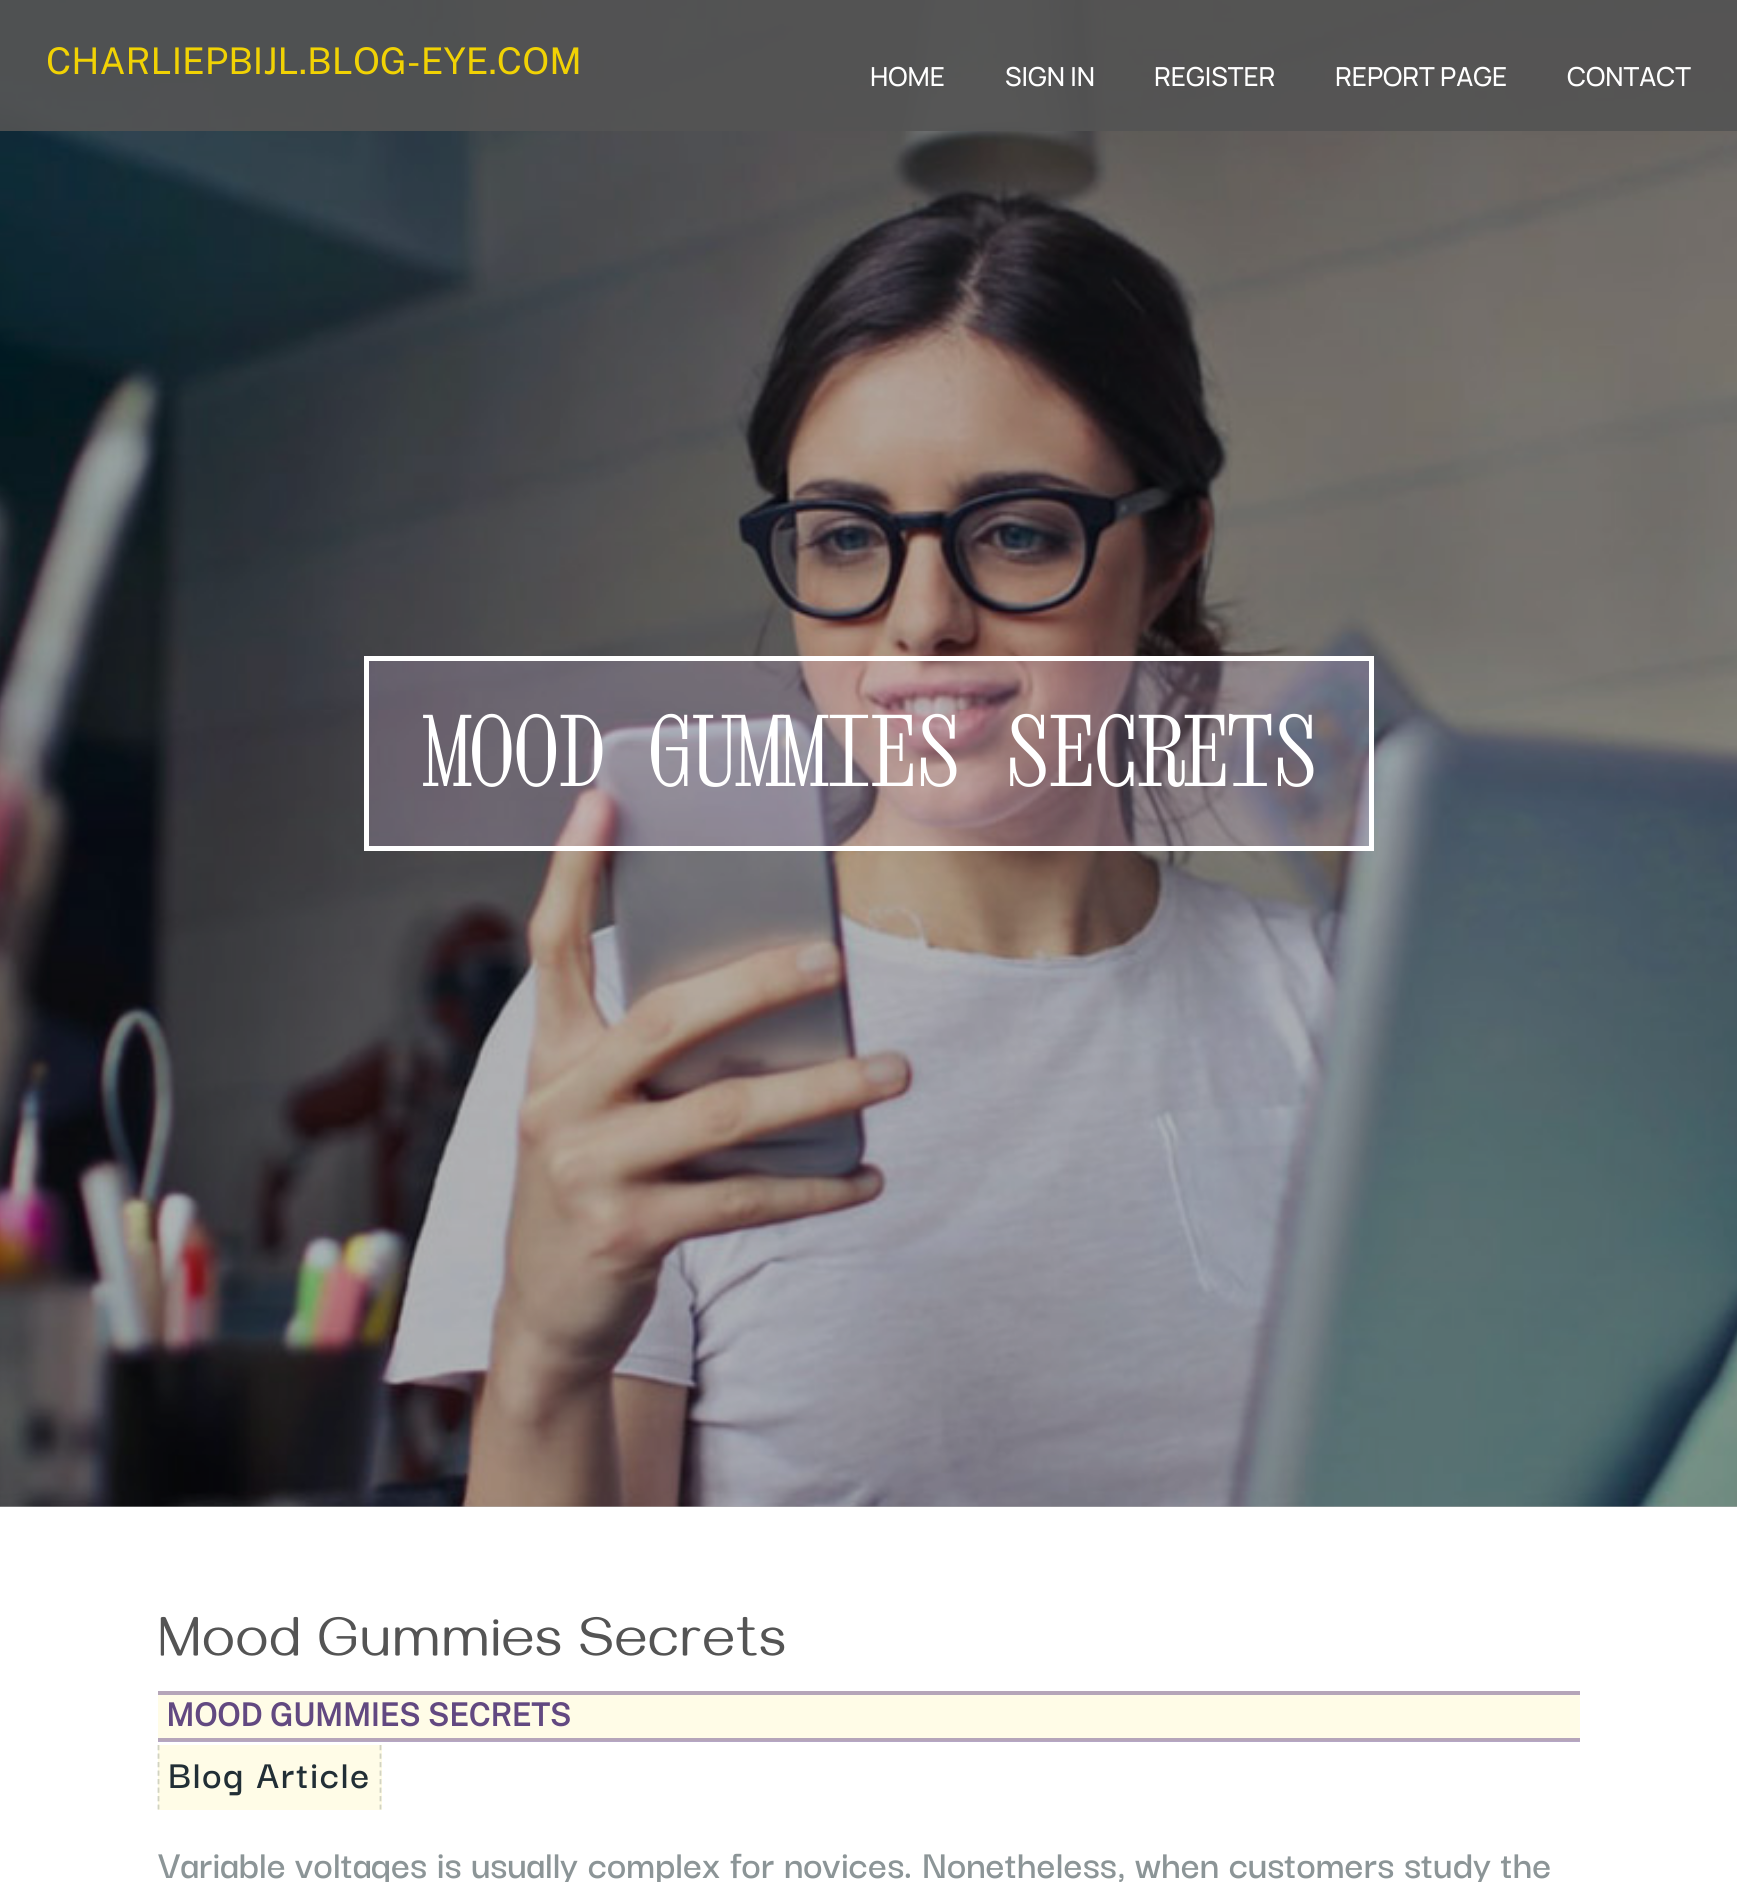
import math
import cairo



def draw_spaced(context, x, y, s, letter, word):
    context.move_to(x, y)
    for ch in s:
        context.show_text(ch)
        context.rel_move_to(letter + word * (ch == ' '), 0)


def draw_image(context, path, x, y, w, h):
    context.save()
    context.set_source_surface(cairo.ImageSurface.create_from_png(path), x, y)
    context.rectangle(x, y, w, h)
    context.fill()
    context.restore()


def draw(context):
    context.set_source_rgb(1, 1, 1)
    context.paint()
    context.set_source_rgb(181 / 255, 166 / 255, 197 / 255)
    context.rectangle(158, 1741, 1422, 1)
    context.fill()
    context.set_source_rgb(179 / 255, 179 / 255, 179 / 255)
    context.rectangle(0, 1506, 1737, 1)
    context.fill()
    draw_image(context, "images/1.png", 0, 0, 1737, 1507)
    context.set_source_rgba(84 / 255, 84 / 255, 84 / 255, 0.9)
    context.rectangle(0, 0, 1737, 131)
    context.fill()
    context.set_source_rgba(241 / 255, 210 / 255, 1, 0.2)
    context.rectangle(366.5, 658.5, 1005, 190)
    context.fill_preserve()
    context.set_source_rgb(1, 1, 1)
    context.set_line_width(5)
    context.stroke()
    context.set_source_rgb(1, 252 / 255, 231 / 255)
    context.rectangle(158, 1695, 1422, 43)
    context.fill()
    context.set_source_rgb(181 / 255, 165 / 255, 185 / 255)
    context.rectangle(158, 1738, 1422, 3)
    context.fill()
    context.rectangle(158, 1691, 1422, 4)
    context.fill()
    context.set_source_rgb(1, 252 / 255, 231 / 255)
    context.rectangle(158, 1745, 224, 65)
    context.fill()
    context.new_path()
    context.move_to(380.5, 1745)
    context.line_to(380.5, 1809.5)
    context.set_source_rgb(209 / 255, 211 / 255, 193 / 255)
    context.set_line_width(1.8)
    context.set_dash([5.25, 3.26])
    context.stroke()
    context.new_path()
    context.move_to(158.5, 1745)
    context.line_to(158.5, 1809.5)
    context.stroke()
    context.select_font_face("Public Sans Thin")
    context.set_font_size(36.75)
    context.set_source_rgb(241 / 255, 210 / 255, 4 / 255)
    context.move_to(46, 74)
    context.show_text("CHARLIEPBIJL.BLOG-EYE.COM")
    context.select_font_face("Manrope ExtraLight")
    context.set_font_size(26.25)
    context.set_source_rgb(1, 1, 1)
    context.move_to(870, 86)
    context.show_text("HOME")
    context.move_to(1005, 86)
    context.show_text("SIGN IN")
    context.move_to(1154, 86)
    context.show_text("REGISTER")
    context.move_to(1335, 86)
    context.show_text("REPORT PAGE")
    context.move_to(1567, 86)
    context.show_text("CONTACT")
    context.select_font_face("Xanh Mono")
    context.set_font_size(96.25)
    draw_spaced(context, 423, 786, "MOOD GUMMIES SECRETS", -3.5, 0)
    context.select_font_face("Gayathri")
    context.set_font_size(56.5)
    context.set_source_rgb(84 / 255, 84 / 255, 84 / 255)
    draw_spaced(context, 158, 1655, "Mood Gummies Secrets", 1.75, 0)
    context.select_font_face("Public Sans", cairo.FontSlant.NORMAL, cairo.FontWeight.BOLD)
    context.set_font_size(31.5)
    context.set_source_rgb(98 / 255, 73 / 255, 129 / 255)
    context.move_to(166, 1726)
    context.show_text("MOOD GUMMIES SECRETS")
    context.select_font_face("Darker Grotesque SemiBold")
    context.set_font_size(42)
    context.set_source_rgb(34 / 255, 47 / 255, 54 / 255)
    draw_spaced(context, 168, 1788, "Blog Article", 1.75, 0)
    context.set_source_rgb(140 / 255, 149 / 255, 151 / 255)
    context.move_to(158, 1878)
    context.show_text("Variable voltages is usually complex for novices. Nonetheless, when customers study the")


surface = cairo.ImageSurface(cairo.Format.RGB24, 1737, 1882)
context = cairo.Context(surface)
options = cairo.FontOptions()
options.set_hint_metrics(cairo.HintMetrics.OFF)
options.set_hint_style(cairo.HintStyle.NONE)
context.set_font_options(options)
context.set_miter_limit(4)
draw(context)
surface.write_to_png("out.png")
